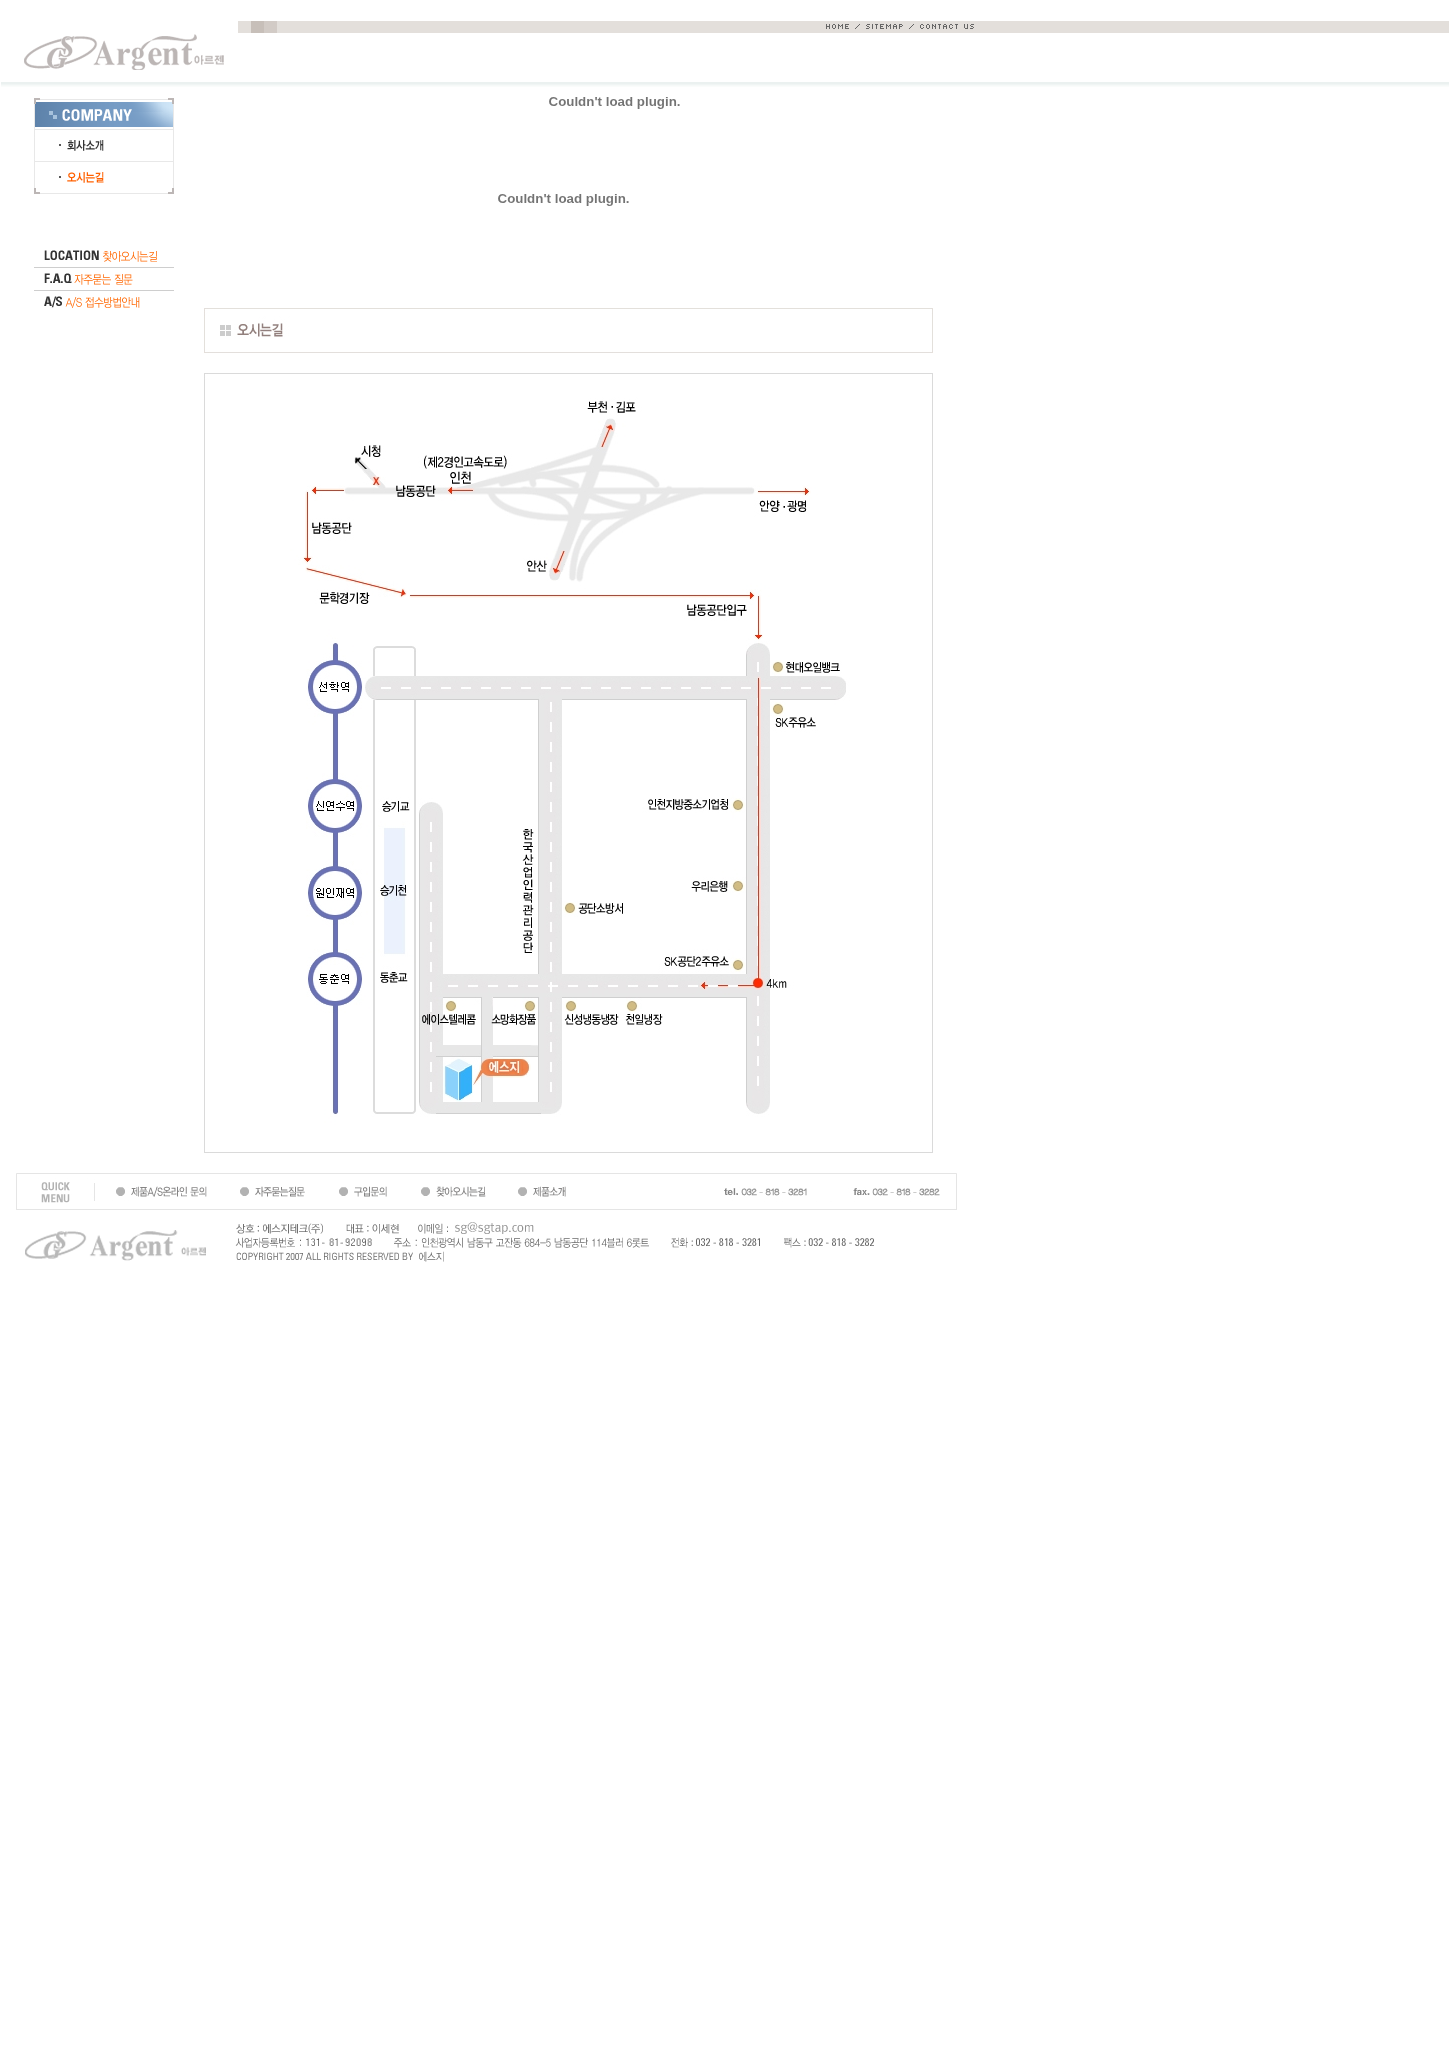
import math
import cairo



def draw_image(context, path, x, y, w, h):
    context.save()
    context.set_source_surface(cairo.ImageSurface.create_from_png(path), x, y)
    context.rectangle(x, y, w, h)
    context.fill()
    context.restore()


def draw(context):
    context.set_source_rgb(1, 1, 1)
    context.paint()
    draw_image(context, "images/1.png", 238, 21, 583, 12)
    draw_image(context, "images/2.png", 821, 21, 39, 12)
    draw_image(context, "images/3.png", 860, 21, 54, 12)
    draw_image(context, "images/4.png", 914, 21, 75, 12)
    context.set_source_rgb(227 / 255, 223 / 255, 219 / 255)
    context.rectangle(989, 21, 460, 12)
    context.fill()
    draw_image(context, "images/5.png", 24, 34, 200, 36)
    draw_image(context, "images/6.png", 1, 82, 1448, 5)
    draw_image(context, "images/7.png", 34, 98, 140, 32)
    draw_image(context, "images/8.png", 34, 130, 140, 32)
    draw_image(context, "images/9.png", 34, 162, 140, 32)
    draw_image(context, "images/10.png", 44, 250, 113, 12)
    draw_image(context, "images/11.png", 34, 267, 140, 18)
    draw_image(context, "images/12.png", 34, 290, 140, 18)
    draw_image(context, "images/13.png", 498, 194, 131, 12)
    draw_image(context, "images/14.png", 204, 308, 729, 45)
    draw_image(context, "images/15.png", 204, 373, 729, 780)
    draw_image(context, "images/13.png", 549, 97, 131, 12)
    draw_image(context, "images/16.png", 16, 1173, 76, 37)
    draw_image(context, "images/17.png", 92, 1173, 129, 37)
    draw_image(context, "images/18.png", 221, 1173, 98, 37)
    draw_image(context, "images/19.png", 319, 1173, 82, 37)
    draw_image(context, "images/20.png", 401, 1173, 97, 37)
    draw_image(context, "images/21.png", 498, 1173, 91, 37)
    draw_image(context, "images/22.png", 589, 1173, 368, 37)
    draw_image(context, "images/23.png", 25, 1222, 849, 40)


surface = cairo.ImageSurface(cairo.Format.RGB24, 1450, 2072)
context = cairo.Context(surface)
options = cairo.FontOptions()
options.set_hint_metrics(cairo.HintMetrics.OFF)
options.set_hint_style(cairo.HintStyle.NONE)
context.set_font_options(options)
context.set_miter_limit(4)
draw(context)
surface.write_to_png("out.png")
